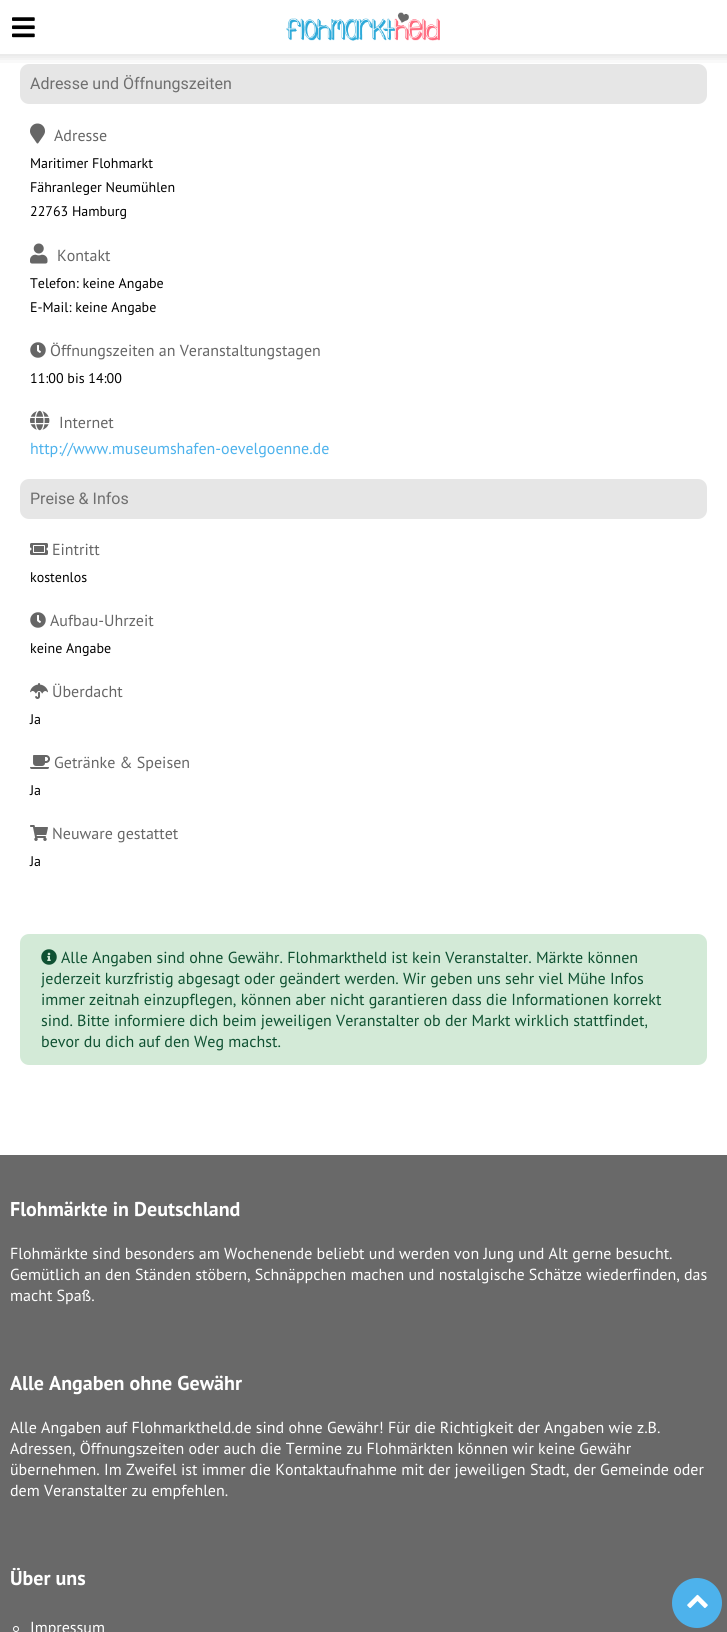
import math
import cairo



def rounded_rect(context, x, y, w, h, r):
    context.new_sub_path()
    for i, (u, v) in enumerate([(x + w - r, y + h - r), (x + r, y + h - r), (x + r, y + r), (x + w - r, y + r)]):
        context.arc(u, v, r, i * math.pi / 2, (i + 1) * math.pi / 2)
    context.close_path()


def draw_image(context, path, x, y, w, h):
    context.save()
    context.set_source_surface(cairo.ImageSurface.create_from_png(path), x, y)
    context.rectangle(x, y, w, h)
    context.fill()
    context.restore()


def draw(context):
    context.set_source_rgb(1, 1, 1)
    context.paint()
    draw_image(context, "images/1.png", 12, 17, 23, 21)
    draw_image(context, "images/2.png", 286, 12, 154, 29)
    draw_image(context, "images/3.png", 0, 54, 727, 9)
    context.set_source_rgb(230 / 255, 230 / 255, 230 / 255)
    rounded_rect(context, 20, 64, 687, 40, 9)
    context.fill()
    draw_image(context, "images/4.png", 30, 123, 15, 21)
    draw_image(context, "images/5.png", 30, 243, 18, 21)
    draw_image(context, "images/6.png", 30, 342, 16, 16)
    draw_image(context, "images/7.png", 30, 410, 20, 21)
    rounded_rect(context, 20, 479, 687, 40, 9)
    context.fill()
    draw_image(context, "images/8.png", 30, 543, 18, 12)
    draw_image(context, "images/6.png", 30, 612, 16, 16)
    draw_image(context, "images/9.png", 30, 683, 18, 16)
    draw_image(context, "images/10.png", 30, 755, 20, 14)
    draw_image(context, "images/11.png", 30, 825, 18, 16)
    context.set_source_rgb(211 / 255, 234 / 255, 215 / 255)
    rounded_rect(context, 20, 934, 687, 131, 9)
    context.fill()
    draw_image(context, "images/12.png", 41, 949, 16, 16)
    context.set_source_rgb(105 / 255, 105 / 255, 105 / 255)
    context.rectangle(0, 1155, 727, 477)
    context.fill()
    context.arc(16, 1629, 2.5, 0, 2 * math.pi)
    context.set_source_rgb(1, 1, 1)
    context.set_line_width(1)
    context.stroke()
    context.set_source_rgb(77 / 255, 178 / 255, 236 / 255)
    context.arc(697, 1603, 25, 0, 2 * math.pi)
    context.fill()
    draw_image(context, "images/13.png", 687, 1594, 21, 14)
    context.select_font_face("Roboto")
    context.set_font_size(16)
    context.set_source_rgb(111 / 255, 111 / 255, 111 / 255)
    context.move_to(30, 89)
    context.show_text("Adresse und Öffnungszeiten")
    context.select_font_face("PT Sans")
    context.set_source_rgb(102 / 255, 102 / 255, 102 / 255)
    context.move_to(54, 141)
    context.show_text("Adresse")
    context.set_font_size(14)
    context.set_source_rgb(0, 0, 0)
    context.move_to(30, 168)
    context.show_text("Maritimer Flohmarkt")
    context.move_to(30, 192)
    context.show_text("Fähranleger Neumühlen")
    context.move_to(30, 216)
    context.show_text("22763 Hamburg")
    context.set_font_size(16)
    context.set_source_rgb(102 / 255, 102 / 255, 102 / 255)
    context.move_to(57, 261)
    context.show_text("Kontakt")
    context.set_font_size(14)
    context.set_source_rgb(0, 0, 0)
    context.move_to(30, 288)
    context.show_text("Telefon: keine Angabe")
    context.move_to(30, 312)
    context.show_text("E-Mail: keine Angabe")
    context.set_font_size(16)
    context.set_source_rgb(102 / 255, 102 / 255, 102 / 255)
    context.move_to(50, 356)
    context.show_text("Öffnungszeiten an Veranstaltungstagen")
    context.set_font_size(14)
    context.set_source_rgb(0, 0, 0)
    context.move_to(30, 383)
    context.show_text("11:00 bis 14:00")
    context.set_font_size(16)
    context.set_source_rgb(102 / 255, 102 / 255, 102 / 255)
    context.move_to(59, 428)
    context.show_text("Internet")
    context.set_source_rgb(77 / 255, 178 / 255, 236 / 255)
    context.move_to(30, 454)
    context.show_text("http://www.museumshafen-oevelgoenne.de")
    context.select_font_face("Roboto")
    context.set_source_rgb(111 / 255, 111 / 255, 111 / 255)
    context.move_to(30, 504)
    context.show_text("Preise & Infos")
    context.select_font_face("PT Sans")
    context.set_source_rgb(102 / 255, 102 / 255, 102 / 255)
    context.move_to(52, 555)
    context.show_text("Eintritt")
    context.set_font_size(14)
    context.set_source_rgb(0, 0, 0)
    context.move_to(30, 582)
    context.show_text("kostenlos")
    context.set_font_size(16)
    context.set_source_rgb(102 / 255, 102 / 255, 102 / 255)
    context.move_to(50, 626)
    context.show_text("Aufbau-Uhrzeit")
    context.set_font_size(14)
    context.set_source_rgb(0, 0, 0)
    context.move_to(30, 653)
    context.show_text("keine Angabe")
    context.set_font_size(16)
    context.set_source_rgb(102 / 255, 102 / 255, 102 / 255)
    context.move_to(52, 697)
    context.show_text("Überdacht")
    context.set_font_size(14)
    context.set_source_rgb(0, 0, 0)
    context.move_to(30, 724)
    context.show_text("Ja")
    context.set_font_size(16)
    context.set_source_rgb(102 / 255, 102 / 255, 102 / 255)
    context.move_to(54, 768)
    context.show_text("Getränke & Speisen")
    context.set_font_size(14)
    context.set_source_rgb(0, 0, 0)
    context.move_to(30, 795)
    context.show_text("Ja")
    context.set_font_size(16)
    context.set_source_rgb(102 / 255, 102 / 255, 102 / 255)
    context.move_to(52, 839)
    context.show_text("Neuware gestattet")
    context.set_font_size(14)
    context.set_source_rgb(0, 0, 0)
    context.move_to(30, 866)
    context.show_text("Ja")
    context.set_font_size(16)
    context.set_source_rgb(15 / 255, 81 / 255, 50 / 255)
    context.move_to(61, 963)
    context.show_text("Alle Angaben sind ohne Gewähr. Flohmarktheld ist kein Veranstalter. Märkte können")
    context.move_to(41, 984)
    context.show_text("jederzeit kurzfristig abgesagt oder geändert werden. Wir geben uns sehr viel Mühe Infos")
    context.move_to(41, 1005)
    context.show_text("immer zeitnah einzupflegen, können aber nicht garantieren dass die Informationen korrekt")
    context.move_to(41, 1026)
    context.show_text("sind. Bitte informiere dich beim jeweiligen Veranstalter ob der Markt wirklich stattfindet,")
    context.move_to(41, 1047)
    context.show_text("bevor du dich auf den Weg machst.")
    context.select_font_face("PT Sans", cairo.FontSlant.NORMAL, cairo.FontWeight.BOLD)
    context.set_font_size(20)
    context.set_source_rgb(1, 1, 1)
    context.move_to(10, 1216)
    context.show_text("Flohmärkte in Deutschland")
    context.select_font_face("PT Sans")
    context.set_font_size(16)
    context.move_to(10, 1259)
    context.show_text("Flohmärkte sind besonders am Wochenende beliebt und werden von Jung und Alt gerne besucht.")
    context.move_to(10, 1280)
    context.show_text("Gemütlich an den Ständen stöbern, Schnäppchen machen und nostalgische Schätze wiederfinden, das")
    context.move_to(10, 1301)
    context.show_text("macht Spaß.")
    context.select_font_face("PT Sans", cairo.FontSlant.NORMAL, cairo.FontWeight.BOLD)
    context.set_font_size(20)
    context.move_to(10, 1390)
    context.show_text("Alle Angaben ohne Gewähr")
    context.select_font_face("PT Sans")
    context.set_font_size(16)
    context.move_to(10, 1433)
    context.show_text("Alle Angaben auf Flohmarktheld.de sind ohne Gewähr! Für die Richtigkeit der Angaben wie z.B.")
    context.move_to(10, 1454)
    context.show_text("Adressen, Öffnungszeiten oder auch die Termine zu Flohmärkten können wir keine Gewähr")
    context.move_to(10, 1475)
    context.show_text("übernehmen. Im Zweifel ist immer die Kontaktaufnahme mit der jeweiligen Stadt, der Gemeinde oder")
    context.move_to(10, 1496)
    context.show_text("dem Veranstalter zu empfehlen.")
    context.select_font_face("PT Sans", cairo.FontSlant.NORMAL, cairo.FontWeight.BOLD)
    context.set_font_size(20)
    context.move_to(10, 1585)
    context.show_text("Über uns")
    context.select_font_face("PT Sans")
    context.set_font_size(16)
    context.move_to(30, 1633)
    context.show_text("Impressum")


surface = cairo.ImageSurface(cairo.Format.RGB24, 727, 1632)
context = cairo.Context(surface)
options = cairo.FontOptions()
options.set_hint_metrics(cairo.HintMetrics.OFF)
options.set_hint_style(cairo.HintStyle.NONE)
context.set_font_options(options)
context.set_miter_limit(4)
draw(context)
surface.write_to_png("out.png")
